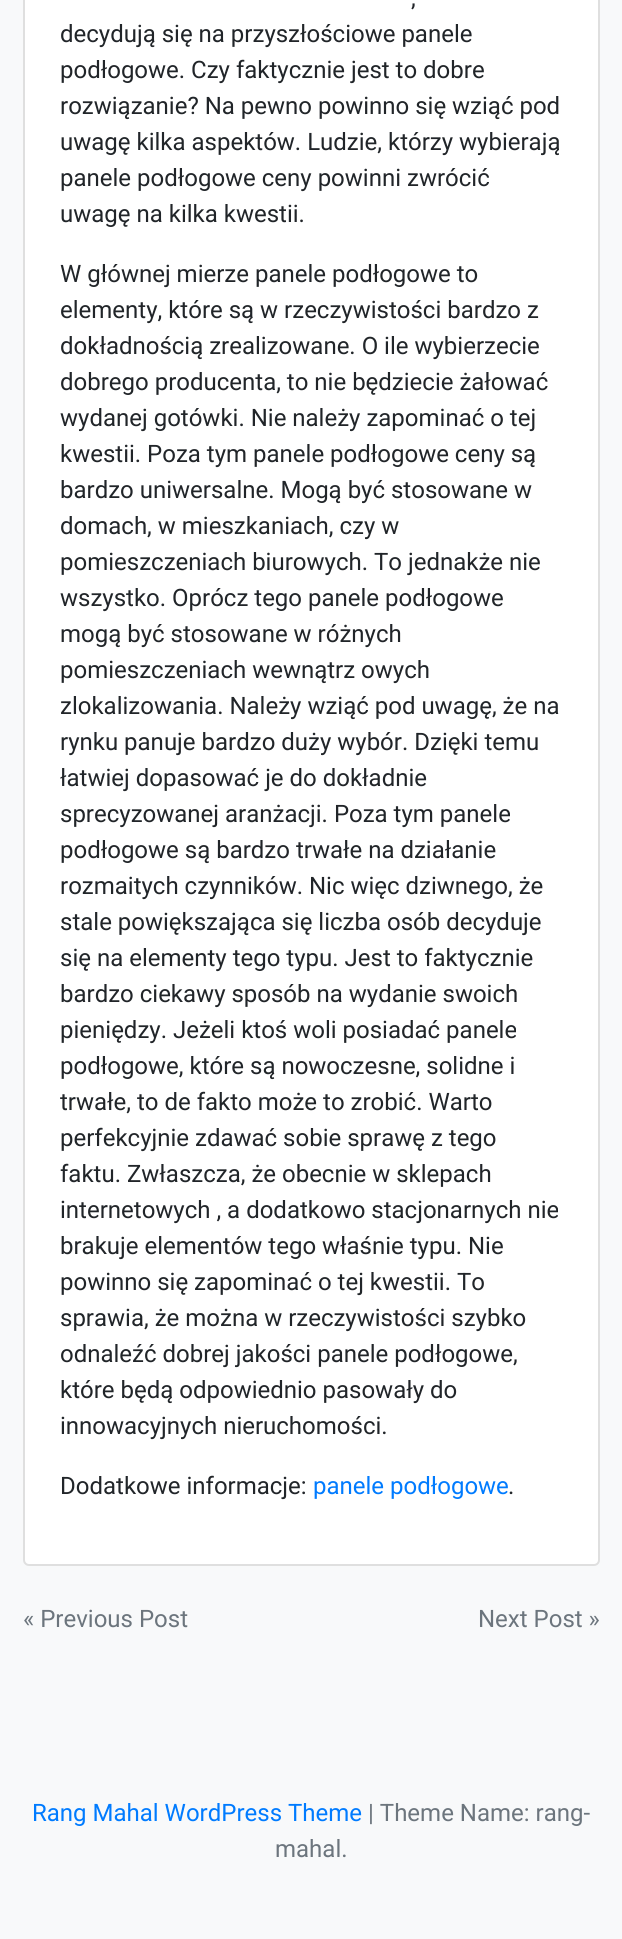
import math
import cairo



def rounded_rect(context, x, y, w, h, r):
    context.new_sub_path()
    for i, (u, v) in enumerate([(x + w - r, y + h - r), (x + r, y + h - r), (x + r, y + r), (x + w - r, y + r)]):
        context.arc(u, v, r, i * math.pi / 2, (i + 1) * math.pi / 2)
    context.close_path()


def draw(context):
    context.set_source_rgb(248 / 255, 249 / 255, 250 / 255)
    context.paint()
    context.set_source_rgb(1, 1, 1)
    rounded_rect(context, 24, -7, 575, 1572, 5)
    context.fill_preserve()
    context.set_source_rgb(223 / 255, 223 / 255, 223 / 255)
    context.stroke()
    context.select_font_face("Roboto")
    context.set_font_size(24)
    context.set_source_rgb(33 / 255, 37 / 255, 41 / 255)
    context.move_to(411, 6)
    context.show_text(",")
    context.move_to(60, 42)
    context.show_text("decydują się na przyszłościowe panele")
    context.move_to(60, 78)
    context.show_text("podłogowe. Czy faktycznie jest to dobre")
    context.move_to(60, 114)
    context.show_text("rozwiązanie? Na pewno powinno się wziąć pod")
    context.move_to(60, 150)
    context.show_text("uwagę kilka aspektów. Ludzie, którzy wybierają")
    context.move_to(60, 186)
    context.show_text("panele podłogowe ceny powinni zwrócić")
    context.move_to(60, 222)
    context.show_text("uwagę na kilka kwestii.")
    context.move_to(60, 282)
    context.show_text("W głównej mierze panele podłogowe to")
    context.move_to(60, 318)
    context.show_text("elementy, które są w rzeczywistości bardzo z")
    context.move_to(60, 354)
    context.show_text("dokładnością zrealizowane. O ile wybierzecie")
    context.move_to(60, 390)
    context.show_text("dobrego producenta, to nie będziecie żałować")
    context.move_to(60, 426)
    context.show_text("wydanej gotówki. Nie należy zapominać o tej")
    context.move_to(60, 462)
    context.show_text("kwestii. Poza tym panele podłogowe ceny są")
    context.move_to(60, 498)
    context.show_text("bardzo uniwersalne. Mogą być stosowane w")
    context.move_to(60, 534)
    context.show_text("domach, w mieszkaniach, czy w")
    context.move_to(60, 570)
    context.show_text("pomieszczeniach biurowych. To jednakże nie")
    context.move_to(60, 606)
    context.show_text("wszystko. Oprócz tego panele podłogowe")
    context.move_to(60, 642)
    context.show_text("mogą być stosowane w różnych")
    context.move_to(60, 678)
    context.show_text("pomieszczeniach wewnątrz owych")
    context.move_to(60, 714)
    context.show_text("zlokalizowania. Należy wziąć pod uwagę, że na")
    context.move_to(60, 750)
    context.show_text("rynku panuje bardzo duży wybór. Dzięki temu")
    context.move_to(60, 786)
    context.show_text("łatwiej dopasować je do dokładnie")
    context.move_to(60, 822)
    context.show_text("sprecyzowanej aranżacji. Poza tym panele")
    context.move_to(60, 858)
    context.show_text("podłogowe są bardzo trwałe na działanie")
    context.move_to(60, 894)
    context.show_text("rozmaitych czynników. Nic więc dziwnego, że")
    context.move_to(60, 930)
    context.show_text("stale powiększająca się liczba osób decyduje")
    context.move_to(60, 966)
    context.show_text("się na elementy tego typu. Jest to faktycznie")
    context.move_to(60, 1002)
    context.show_text("bardzo ciekawy sposób na wydanie swoich")
    context.move_to(60, 1038)
    context.show_text("pieniędzy. Jeżeli ktoś woli posiadać panele")
    context.move_to(60, 1074)
    context.show_text("podłogowe, które są nowoczesne, solidne i")
    context.move_to(60, 1110)
    context.show_text("trwałe, to de fakto może to zrobić. Warto")
    context.move_to(60, 1146)
    context.show_text("perfekcyjnie zdawać sobie sprawę z tego")
    context.move_to(60, 1182)
    context.show_text("faktu. Zwłaszcza, że obecnie w sklepach")
    context.move_to(60, 1218)
    context.show_text("internetowych , a dodatkowo stacjonarnych nie")
    context.move_to(60, 1254)
    context.show_text("brakuje elementów tego właśnie typu. Nie")
    context.move_to(60, 1290)
    context.show_text("powinno się zapominać o tej kwestii. To")
    context.move_to(60, 1326)
    context.show_text("sprawia, że można w rzeczywistości szybko")
    context.move_to(60, 1362)
    context.show_text("odnaleźć dobrej jakości panele podłogowe,")
    context.move_to(60, 1398)
    context.show_text("które będą odpowiednio pasowały do")
    context.move_to(60, 1434)
    context.show_text("innowacyjnych nieruchomości.")
    context.move_to(60, 1494)
    context.show_text("Dodatkowe informacje:")
    context.set_source_rgb(0, 123 / 255, 1)
    context.move_to(313, 1494)
    context.show_text("panele podłogowe")
    context.set_source_rgb(33 / 255, 37 / 255, 41 / 255)
    context.move_to(508, 1494)
    context.show_text(".")
    context.set_source_rgb(108 / 255, 117 / 255, 125 / 255)
    context.move_to(23, 1627)
    context.show_text("« Previous Post")
    context.move_to(478, 1627)
    context.show_text("Next Post »")
    context.set_source_rgb(0, 123 / 255, 1)
    context.move_to(32, 1821)
    context.show_text("Rang Mahal WordPress Theme")
    context.set_source_rgb(108 / 255, 117 / 255, 125 / 255)
    context.move_to(368, 1821)
    context.show_text("| Theme Name: rang-")
    context.move_to(275, 1857)
    context.show_text("mahal.")


surface = cairo.ImageSurface(cairo.Format.RGB24, 622, 1939)
context = cairo.Context(surface)
options = cairo.FontOptions()
options.set_hint_metrics(cairo.HintMetrics.OFF)
options.set_hint_style(cairo.HintStyle.NONE)
context.set_font_options(options)
context.set_miter_limit(4)
draw(context)
surface.write_to_png("out.png")
